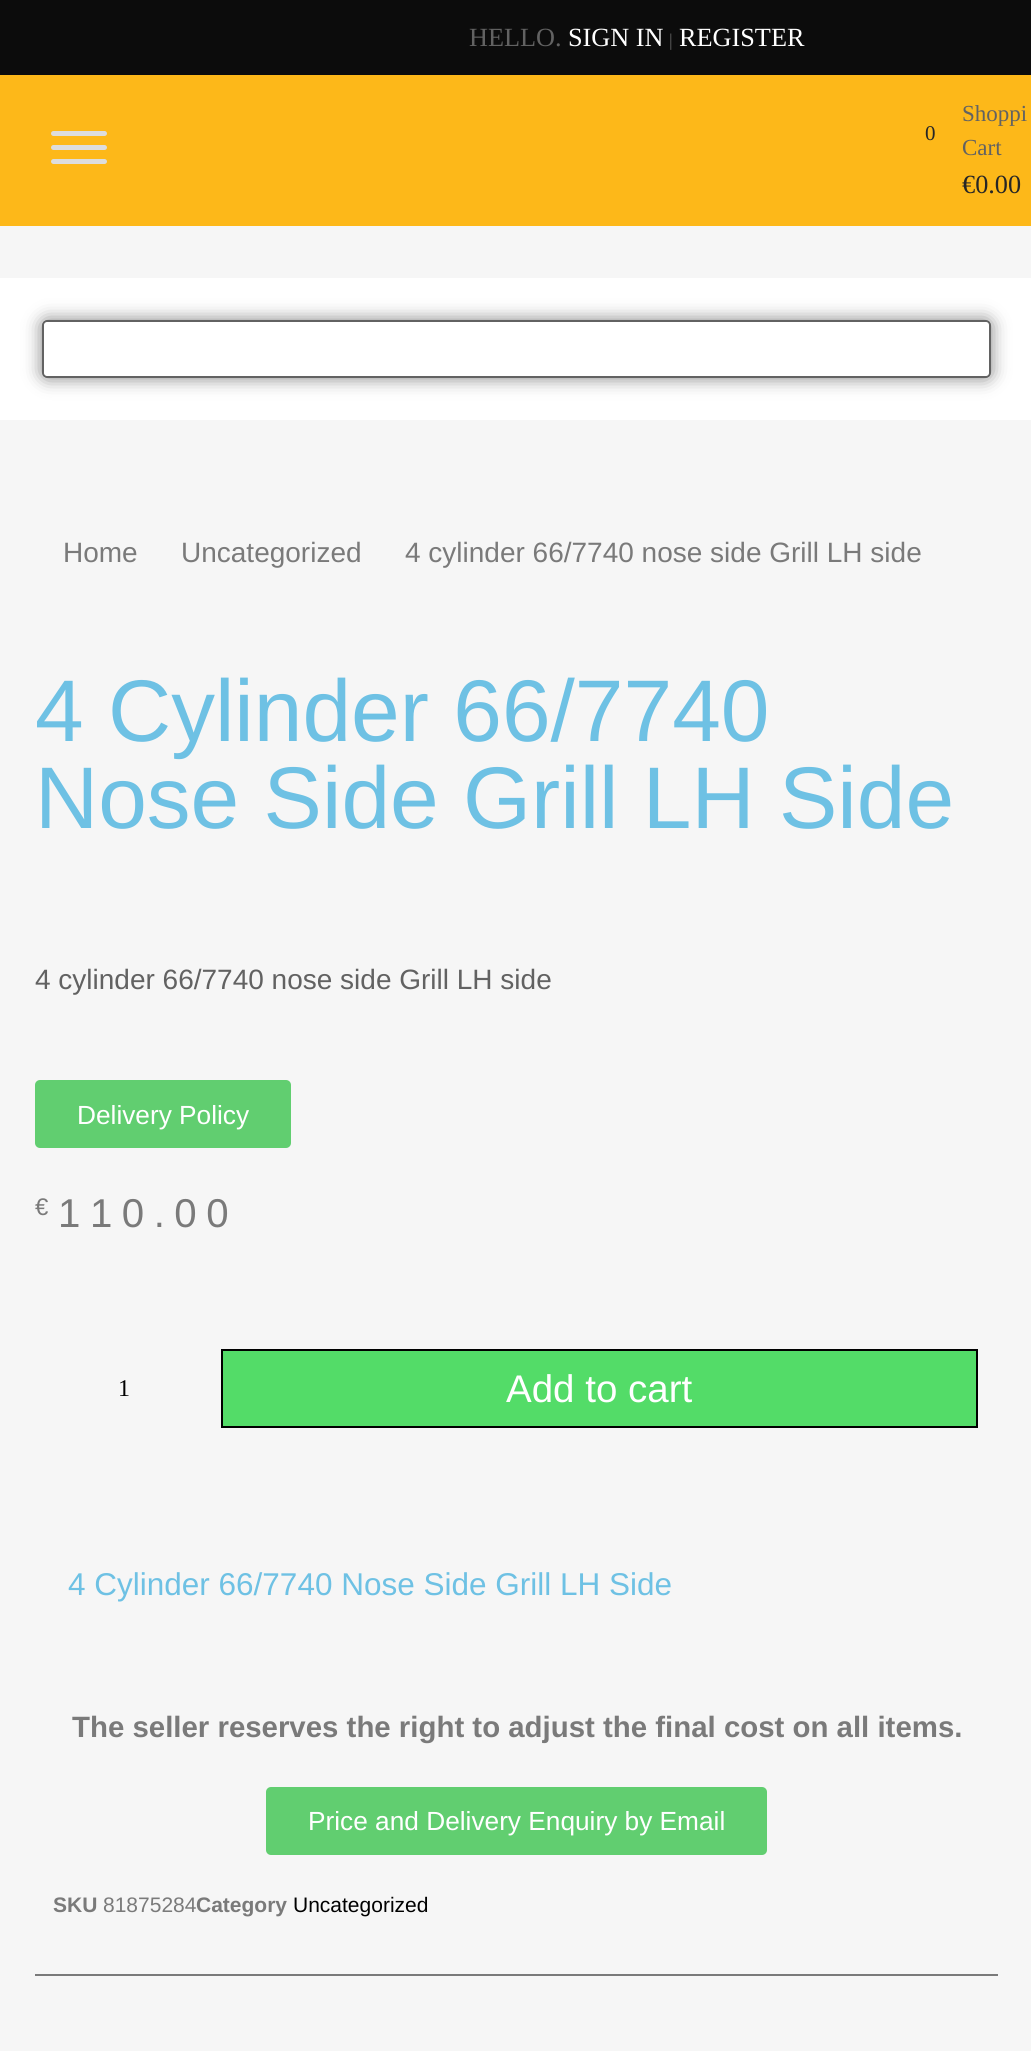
import math
import cairo



def draw_spaced(context, x, y, s, letter, word):
    context.move_to(x, y)
    for ch in s:
        context.show_text(ch)
        context.rel_move_to(letter + word * (ch == ' '), 0)


def rounded_rect(context, x, y, w, h, r):
    context.new_sub_path()
    for i, (u, v) in enumerate([(x + w - r, y + h - r), (x + r, y + h - r), (x + r, y + r), (x + w - r, y + r)]):
        context.arc(u, v, r, i * math.pi / 2, (i + 1) * math.pi / 2)
    context.close_path()


def draw_shadow(context, x, y, w, h, r, blur, alpha):
    context.push_group_with_content(cairo.Content.ALPHA)
    context.set_operator(cairo.Operator.SOURCE)
    for i in range(15, -16, -2):
        e = blur * i / 6
        if min(w, h) + 2 * e > 0:
            context.set_source_rgba(0, 0, 0, alpha * math.erfc((i - 1) / 8.5) / 2)
            rounded_rect(context, x - e, y - e, w + 2 * e, h + 2 * e, max(0, min(r + e + blur * .6, min(w, h) / 2 + e)))
            context.fill()
    context.mask(context.pop_group())


def draw(context):
    context.set_source_rgb(246 / 255, 246 / 255, 246 / 255)
    context.paint()
    context.set_source_rgb(12 / 255, 12 / 255, 12 / 255)
    context.rectangle(0, 0, 1031, 75)
    context.fill()
    context.set_source_rgb(253 / 255, 184 / 255, 25 / 255)
    context.rectangle(0, 75, 1031, 151)
    context.fill()
    context.set_source_rgb(221 / 255, 221 / 255, 221 / 255)
    rounded_rect(context, 51, 131, 56, 5, 2.5)
    context.fill()
    rounded_rect(context, 51, 145, 56, 5, 2.5)
    context.fill()
    rounded_rect(context, 51, 159, 56, 5, 2.5)
    context.fill()
    context.set_source_rgb(1, 1, 1)
    context.rectangle(0, 278, 1031, 142)
    context.fill()
    context.save()
    context.set_fill_rule(cairo.FillRule.EVEN_ODD)
    context.new_path()
    context.move_to(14, 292)
    context.line_to(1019, 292)
    context.line_to(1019, 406)
    context.line_to(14, 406)
    context.close_path()
    context.move_to(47, 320)
    context.line_to(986, 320)
    context.curve_to(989, 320, 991, 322, 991, 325)
    context.line_to(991, 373)
    context.curve_to(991, 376, 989, 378, 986, 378)
    context.line_to(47, 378)
    context.curve_to(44, 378, 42, 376, 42, 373)
    context.line_to(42, 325)
    context.curve_to(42, 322, 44, 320, 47, 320)
    context.close_path()
    context.clip()
    context.set_source_rgb(0, 0, 0)
    draw_shadow(context, 42, 320, 949, 58, 5, 9, 0.5)
    context.restore()
    rounded_rect(context, 43, 321, 947, 56, 4)
    context.set_source_rgb(98 / 255, 98 / 255, 98 / 255)
    context.stroke()
    context.set_source_rgb(97 / 255, 206 / 255, 112 / 255)
    rounded_rect(context, 35, 1080, 256, 68, 5)
    context.fill()
    context.set_source_rgb(83 / 255, 220 / 255, 104 / 255)
    context.rectangle(222, 1350, 755, 77)
    context.fill_preserve()
    context.set_source_rgb(0, 0, 0)
    context.stroke()
    context.set_source_rgb(122 / 255, 122 / 255, 122 / 255)
    context.rectangle(35, 1974, 963, 2)
    context.fill()
    context.set_source_rgb(97 / 255, 206 / 255, 112 / 255)
    rounded_rect(context, 266, 1787, 501, 68, 5)
    context.fill()
    context.select_font_face("Liberation Serif")
    context.set_font_size(26.25)
    context.set_source_rgb(98 / 255, 98 / 255, 98 / 255)
    context.move_to(469, 46)
    context.show_text("HELLO.")
    context.set_source_rgb(1, 1, 1)
    context.move_to(568, 46)
    context.show_text("SIGN IN")
    context.set_font_size(18)
    context.set_source_rgb(98 / 255, 98 / 255, 98 / 255)
    context.move_to(669, 46)
    context.show_text("|")
    context.set_font_size(26.25)
    context.set_source_rgb(1, 1, 1)
    context.move_to(679, 46)
    context.show_text("REGISTER")
    context.set_font_size(21)
    context.set_source_rgb(38 / 255, 38 / 255, 38 / 255)
    context.move_to(925, 140)
    context.show_text("0")
    context.set_font_size(23)
    context.set_source_rgb(98 / 255, 98 / 255, 98 / 255)
    context.move_to(962, 121)
    context.show_text("Shoppi")
    context.move_to(962, 155)
    context.show_text("Cart")
    context.set_font_size(26.25)
    context.set_source_rgb(38 / 255, 38 / 255, 38 / 255)
    context.move_to(962, 193)
    context.show_text("€0.00")
    context.select_font_face("Liberation Sans")
    context.set_font_size(28)
    context.set_source_rgb(122 / 255, 122 / 255, 122 / 255)
    context.move_to(63, 562)
    context.show_text("Home")
    context.move_to(181, 562)
    context.show_text("Uncategorized")
    context.move_to(405, 562)
    context.show_text("4 cylinder 66/7740 nose side Grill LH side")
    context.set_font_size(87.5)
    context.set_source_rgb(110 / 255, 193 / 255, 228 / 255)
    context.move_to(35, 741)
    context.show_text("4 Cylinder 66/7740")
    context.move_to(35, 828)
    context.show_text("Nose Side Grill LH Side")
    context.set_font_size(28)
    context.set_source_rgb(98 / 255, 98 / 255, 98 / 255)
    context.move_to(35, 989)
    context.show_text("4 cylinder 66/7740 nose side Grill LH side")
    context.set_font_size(26.25)
    context.set_source_rgb(1, 1, 1)
    context.move_to(77, 1124)
    context.show_text("Delivery Policy")
    context.set_font_size(24)
    context.set_source_rgb(122 / 255, 122 / 255, 122 / 255)
    draw_spaced(context, 35, 1215, "€", 9.5, 0)
    context.set_font_size(40.25)
    draw_spaced(context, 58, 1227, "110.00", 9.5, 0)
    context.select_font_face("Liberation Serif")
    context.set_font_size(24)
    context.set_source_rgb(0, 0, 0)
    context.move_to(118, 1396)
    context.show_text("1")
    context.select_font_face("Liberation Sans")
    context.set_font_size(38.5)
    context.set_source_rgb(1, 1, 1)
    context.move_to(506, 1402)
    context.show_text("Add to cart")
    context.set_font_size(31.5)
    context.set_source_rgb(110 / 255, 193 / 255, 228 / 255)
    context.move_to(68, 1595)
    context.show_text("4 Cylinder 66/7740 Nose Side Grill LH Side")
    context.select_font_face("Liberation Sans", cairo.FontSlant.NORMAL, cairo.FontWeight.BOLD)
    context.set_font_size(29.4)
    context.set_source_rgb(122 / 255, 122 / 255, 122 / 255)
    context.move_to(72, 1737)
    context.show_text("The seller reserves the right to adjust the final cost on all items.")
    context.select_font_face("Liberation Sans")
    context.set_font_size(26.25)
    context.set_source_rgb(1, 1, 1)
    context.move_to(308, 1830)
    context.show_text("Price and Delivery Enquiry by Email")
    context.select_font_face("Liberation Sans", cairo.FontSlant.NORMAL, cairo.FontWeight.BOLD)
    context.set_font_size(21)
    context.set_source_rgb(122 / 255, 122 / 255, 122 / 255)
    context.move_to(53, 1912)
    context.show_text("SKU")
    context.select_font_face("Liberation Sans")
    context.move_to(103, 1912)
    context.show_text("81875284")
    context.select_font_face("Liberation Sans", cairo.FontSlant.NORMAL, cairo.FontWeight.BOLD)
    context.move_to(196, 1912)
    context.show_text("Category")
    context.select_font_face("Liberation Sans")
    context.set_source_rgb(0, 0, 0)
    context.move_to(293, 1912)
    context.show_text("Uncategorized")


surface = cairo.ImageSurface(cairo.Format.RGB24, 1031, 2051)
context = cairo.Context(surface)
options = cairo.FontOptions()
options.set_hint_metrics(cairo.HintMetrics.OFF)
options.set_hint_style(cairo.HintStyle.NONE)
context.set_font_options(options)
context.set_miter_limit(4)
draw(context)
surface.write_to_png("out.png")
